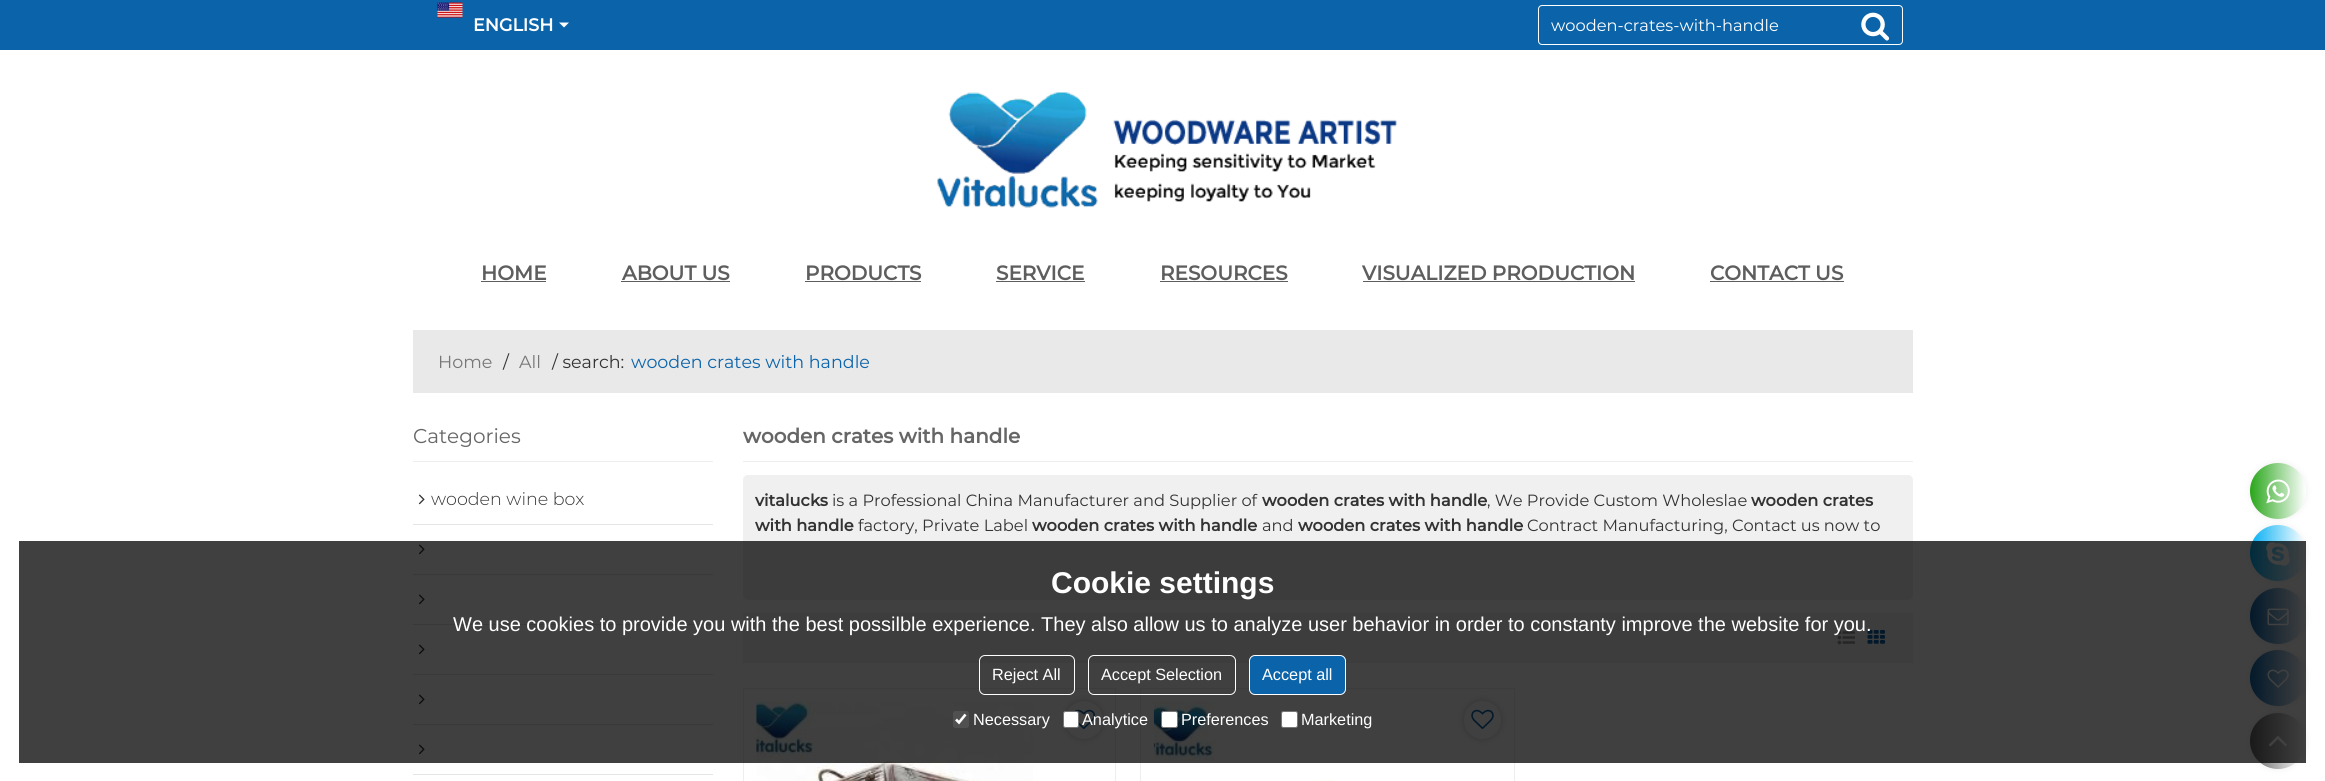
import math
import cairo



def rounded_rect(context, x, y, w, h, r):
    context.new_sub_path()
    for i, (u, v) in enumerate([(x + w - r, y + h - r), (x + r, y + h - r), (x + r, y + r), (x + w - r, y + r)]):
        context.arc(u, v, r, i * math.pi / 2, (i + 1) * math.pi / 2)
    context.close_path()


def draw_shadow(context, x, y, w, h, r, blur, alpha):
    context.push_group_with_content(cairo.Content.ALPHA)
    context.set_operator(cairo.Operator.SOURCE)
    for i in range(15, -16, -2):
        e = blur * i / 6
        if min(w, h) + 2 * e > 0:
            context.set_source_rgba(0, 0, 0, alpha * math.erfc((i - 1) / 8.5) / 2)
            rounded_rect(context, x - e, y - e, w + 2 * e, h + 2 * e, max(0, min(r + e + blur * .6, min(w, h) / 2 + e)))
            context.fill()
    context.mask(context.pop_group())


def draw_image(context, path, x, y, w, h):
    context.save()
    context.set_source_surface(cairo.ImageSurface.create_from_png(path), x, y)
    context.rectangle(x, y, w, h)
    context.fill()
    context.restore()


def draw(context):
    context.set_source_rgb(1, 1, 1)
    context.paint()
    context.set_source_rgb(11 / 255, 100 / 255, 170 / 255)
    context.rectangle(0, 0, 2325, 50)
    context.fill()
    draw_image(context, "images/1.png", 437, 2, 26, 16)
    context.set_source_rgb(1, 1, 1)
    context.new_path()
    context.move_to(559, 22.5)
    context.line_to(569, 22.5)
    context.line_to(564, 27.5)
    context.close_path()
    context.fill()
    rounded_rect(context, 1538.5, 5.5, 364, 39, 3.5)
    context.set_line_width(1)
    context.stroke()
    draw_image(context, "images/2.png", 1861, 12, 29, 29)
    draw_image(context, "images/3.png", 937, 92, 460, 116)
    context.set_source_rgb(94 / 255, 94 / 255, 94 / 255)
    context.rectangle(481, 281, 65, 1)
    context.fill()
    context.rectangle(621, 281, 109, 1)
    context.fill()
    context.rectangle(805, 281, 116, 1)
    context.fill()
    context.rectangle(996, 281, 89, 1)
    context.fill()
    context.rectangle(1160, 281, 128, 1)
    context.fill()
    context.rectangle(1363, 281, 272, 1)
    context.fill()
    context.rectangle(1710, 281, 134, 1)
    context.fill()
    context.set_source_rgb(233 / 255, 233 / 255, 233 / 255)
    context.rectangle(413, 330, 1500, 63)
    context.fill()
    context.set_source_rgb(238 / 255, 238 / 255, 238 / 255)
    context.rectangle(413, 461, 300, 1)
    context.fill()
    context.set_source_rgb(229 / 255, 229 / 255, 229 / 255)
    context.rectangle(413, 524, 300, 1)
    context.fill()
    draw_image(context, "images/4.png", 418, 494, 7, 11)
    context.rectangle(413, 574, 300, 1)
    context.fill()
    draw_image(context, "images/4.png", 418, 544, 7, 11)
    context.rectangle(413, 624, 300, 1)
    context.fill()
    draw_image(context, "images/4.png", 418, 594, 7, 11)
    context.rectangle(413, 674, 300, 1)
    context.fill()
    draw_image(context, "images/4.png", 418, 644, 7, 11)
    context.rectangle(413, 724, 300, 1)
    context.fill()
    draw_image(context, "images/4.png", 418, 694, 7, 11)
    context.rectangle(413, 774, 300, 1)
    context.fill()
    draw_image(context, "images/4.png", 418, 744, 7, 11)
    context.set_source_rgb(238 / 255, 238 / 255, 238 / 255)
    context.rectangle(743, 461, 1170, 1)
    context.fill()
    context.set_source_rgb(240 / 255, 240 / 255, 240 / 255)
    rounded_rect(context, 743, 475, 1170, 125, 5)
    context.fill()
    context.set_source_rgb(245 / 255, 245 / 255, 245 / 255)
    context.rectangle(743, 613, 1170, 50)
    context.fill()
    draw_image(context, "images/5.png", 1837, 630, 18, 15)
    draw_image(context, "images/6.png", 1867, 630, 18, 14)
    context.rectangle(743.5, 688.5, 372, 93)
    context.set_source_rgb(238 / 255, 238 / 255, 238 / 255)
    context.stroke()
    draw_image(context, "images/7.png", 756, 701, 277, 80)
    context.set_source_rgb(0, 0, 0)
    draw_shadow(context, 1065, 701, 38, 38, 19, 3, 0.2)
    context.set_source_rgb(1, 1, 1)
    context.arc(1084, 720, 19, 0, 2 * math.pi)
    context.fill()
    draw_image(context, "images/8.png", 1074, 709, 21, 21)
    context.rectangle(1140.5, 688.5, 374, 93)
    context.set_source_rgb(238 / 255, 238 / 255, 238 / 255)
    context.stroke()
    draw_image(context, "images/9.png", 1153, 701, 180, 80)
    context.set_source_rgb(0, 0, 0)
    draw_shadow(context, 1464, 701, 37, 38, 18.5, 3, 0.2)
    context.set_source_rgb(1, 1, 1)
    rounded_rect(context, 1464, 701, 37, 38, 18.5)
    context.fill()
    draw_image(context, "images/10.png", 1471, 709, 23, 21)
    context.set_source_rgb(238 / 255, 238 / 255, 238 / 255)
    draw_shadow(context, 2250, 463, 56, 56, 28, 3, 1)
    gradient = cairo.LinearGradient(2250, 491, 2306, 491)
    gradient.add_color_stop_rgba(0, 41 / 255, 166 / 255, 26 / 255, 1)
    gradient.add_color_stop_rgba(1, 1, 1, 1, 1)
    context.set_source(gradient)
    context.arc(2278, 491, 28, 0, 2 * math.pi)
    context.fill()
    context.set_source_rgb(238 / 255, 238 / 255, 238 / 255)
    draw_shadow(context, 2250, 525, 56, 56, 28, 3, 1)
    gradient = cairo.LinearGradient(2250, 553, 2306, 553)
    gradient.add_color_stop_rgba(0, 1 / 255, 174 / 255, 243 / 255, 1)
    gradient.add_color_stop_rgba(1, 1, 1, 1, 1)
    context.set_source(gradient)
    context.arc(2278, 553, 28, 0, 2 * math.pi)
    context.fill()
    draw_image(context, "images/12.png", 2266, 542, 24, 24)
    context.set_source_rgb(238 / 255, 238 / 255, 238 / 255)
    draw_shadow(context, 2250, 588, 56, 56, 28, 3, 1)
    gradient = cairo.LinearGradient(2250, 616, 2306, 616)
    gradient.add_color_stop_rgba(0, 11 / 255, 100 / 255, 170 / 255, 1)
    gradient.add_color_stop_rgba(1, 1, 1, 1, 1)
    context.set_source(gradient)
    context.arc(2278, 616, 28, 0, 2 * math.pi)
    context.fill()
    draw_image(context, "images/13.png", 2267, 608, 22, 18)
    context.set_source_rgb(238 / 255, 238 / 255, 238 / 255)
    draw_shadow(context, 2250, 650, 56, 56, 28, 3, 1)
    gradient = cairo.LinearGradient(2250, 678, 2306, 678)
    gradient.add_color_stop_rgba(0, 11 / 255, 100 / 255, 170 / 255, 1)
    gradient.add_color_stop_rgba(1, 1, 1, 1, 1)
    context.set_source(gradient)
    context.arc(2278, 678, 28, 0, 2 * math.pi)
    context.fill()
    draw_image(context, "images/14.png", 2267, 669, 22, 19)
    context.set_source_rgb(238 / 255, 238 / 255, 238 / 255)
    draw_shadow(context, 2250, 713, 56, 56, 28, 3, 1)
    gradient = cairo.LinearGradient(2250, 741, 2306, 741)
    gradient.add_color_stop_rgba(0, 102 / 255, 102 / 255, 102 / 255, 1)
    gradient.add_color_stop_rgba(1, 1, 1, 1, 1)
    context.set_source(gradient)
    context.arc(2278, 741, 28, 0, 2 * math.pi)
    context.fill()
    draw_image(context, "images/15.png", 2269, 736, 18, 11)
    context.set_source_rgba(0, 0, 0, 0.75)
    context.rectangle(19, 541, 2287, 222)
    context.fill()
    rounded_rect(context, 979.5, 655.5, 95, 39, 5.5)
    context.set_source_rgb(1, 1, 1)
    context.stroke()
    rounded_rect(context, 1088.5, 655.5, 147, 39, 5.5)
    context.stroke()
    context.set_source_rgb(11 / 255, 100 / 255, 170 / 255)
    rounded_rect(context, 1249.5, 655.5, 96, 39, 5.5)
    context.fill_preserve()
    context.set_source_rgb(1, 1, 1)
    context.stroke()
    context.set_source_rgb(80 / 255, 80 / 255, 80 / 255)
    rounded_rect(context, 953, 711, 16, 17, 2.5)
    context.fill()
    context.new_path()
    context.move_to(956, 719.5)
    context.line_to(959, 722.5)
    context.line_to(965.5, 714.5)
    context.set_source_rgb(1, 1, 1)
    context.set_line_width(2.6)
    context.stroke()
    rounded_rect(context, 1063.5, 711.5, 15, 16, 2)
    context.fill_preserve()
    context.set_source_rgb(118 / 255, 118 / 255, 118 / 255)
    context.set_line_width(1)
    context.stroke()
    context.set_source_rgb(1, 1, 1)
    rounded_rect(context, 1161.5, 711.5, 16, 16, 2)
    context.fill_preserve()
    context.set_source_rgb(118 / 255, 118 / 255, 118 / 255)
    context.stroke()
    context.set_source_rgb(1, 1, 1)
    rounded_rect(context, 1281.5, 711.5, 16, 16, 2)
    context.fill_preserve()
    context.set_source_rgb(118 / 255, 118 / 255, 118 / 255)
    context.stroke()
    draw_image(context, "images/11.png", 2266, 479, 24, 25)
    context.select_font_face("Montserrat", cairo.FontSlant.NORMAL, cairo.FontWeight.BOLD)
    context.set_font_size(17.5)
    context.set_source_rgb(1, 1, 1)
    context.move_to(473, 31)
    context.show_text("ENGLISH")
    context.select_font_face("Montserrat")
    context.set_font_size(16.25)
    context.move_to(1551, 31)
    context.show_text("wooden-crates-with-handle")
    context.select_font_face("Montserrat", cairo.FontSlant.NORMAL, cairo.FontWeight.BOLD)
    context.set_font_size(20)
    context.set_source_rgb(94 / 255, 94 / 255, 94 / 255)
    context.move_to(481, 280)
    context.show_text("HOME")
    context.move_to(622, 280)
    context.show_text("ABOUT US")
    context.move_to(805, 280)
    context.show_text("PRODUCTS")
    context.move_to(996, 280)
    context.show_text("SERVICE")
    context.move_to(1160, 280)
    context.show_text("RESOURCES")
    context.move_to(1362, 280)
    context.show_text("VISUALIZED PRODUCTION")
    context.move_to(1710, 280)
    context.show_text("CONTACT US")
    context.select_font_face("Montserrat")
    context.set_font_size(17.5)
    context.set_source_rgb(119 / 255, 119 / 255, 119 / 255)
    context.move_to(438, 368)
    context.show_text("Home")
    context.set_source_rgb(51 / 255, 51 / 255, 51 / 255)
    context.move_to(503, 368)
    context.show_text("/")
    context.set_source_rgb(119 / 255, 119 / 255, 119 / 255)
    context.move_to(519, 368)
    context.show_text("All")
    context.set_source_rgb(51 / 255, 51 / 255, 51 / 255)
    context.move_to(552, 368)
    context.show_text("/ search:")
    context.set_source_rgb(11 / 255, 100 / 255, 170 / 255)
    context.move_to(631, 368)
    context.show_text("wooden crates with handle")
    context.set_font_size(20)
    context.set_source_rgb(102 / 255, 102 / 255, 102 / 255)
    context.move_to(413, 443)
    context.show_text("Categories")
    context.select_font_face("Montserrat Light")
    context.set_font_size(17.5)
    context.set_source_rgb(51 / 255, 51 / 255, 51 / 255)
    context.move_to(431, 505)
    context.show_text("wooden wine box")
    context.select_font_face("Montserrat", cairo.FontSlant.NORMAL, cairo.FontWeight.BOLD)
    context.set_font_size(20)
    context.set_source_rgb(102 / 255, 102 / 255, 102 / 255)
    context.move_to(743, 443)
    context.show_text("wooden crates with handle")
    context.set_font_size(16.25)
    context.set_source_rgb(51 / 255, 51 / 255, 51 / 255)
    context.move_to(755, 506)
    context.show_text("vitalucks")
    context.select_font_face("Montserrat")
    context.move_to(832, 506)
    context.show_text("is a Professional China Manufacturer and Supplier of")
    context.select_font_face("Montserrat", cairo.FontSlant.NORMAL, cairo.FontWeight.BOLD)
    context.move_to(1262, 506)
    context.show_text("wooden crates with handle")
    context.select_font_face("Montserrat")
    context.move_to(1487, 506)
    context.show_text(", We Provide Custom Wholeslae")
    context.select_font_face("Montserrat", cairo.FontSlant.NORMAL, cairo.FontWeight.BOLD)
    context.move_to(1751, 506)
    context.show_text("wooden crates")
    context.move_to(755, 531)
    context.show_text("with handle")
    context.select_font_face("Montserrat")
    context.move_to(858, 531)
    context.show_text("factory, Private Label")
    context.select_font_face("Montserrat", cairo.FontSlant.NORMAL, cairo.FontWeight.BOLD)
    context.move_to(1032, 531)
    context.show_text("wooden crates with handle")
    context.select_font_face("Montserrat")
    context.move_to(1262, 531)
    context.show_text("and")
    context.select_font_face("Montserrat", cairo.FontSlant.NORMAL, cairo.FontWeight.BOLD)
    context.move_to(1298, 531)
    context.show_text("wooden crates with handle")
    context.select_font_face("Montserrat")
    context.move_to(1527, 531)
    context.show_text("Contract Manufacturing, Contact us now to")
    context.select_font_face("Liberation Sans", cairo.FontSlant.NORMAL, cairo.FontWeight.BOLD)
    context.set_font_size(30)
    context.set_source_rgb(1, 1, 1)
    context.move_to(1051, 593)
    context.show_text("Cookie settings")
    context.select_font_face("Liberation Sans")
    context.set_font_size(20)
    context.move_to(453, 631)
    context.show_text("We use cookies to provide you with the best possilble experience. They also allow us to analyze user behavior in order to constanty improve the website for you.")
    context.set_font_size(16.25)
    context.move_to(992, 680)
    context.show_text("Reject All")
    context.move_to(1101, 680)
    context.show_text("Accept Selection")
    context.move_to(1262, 680)
    context.show_text("Accept all")
    context.move_to(973, 725)
    context.show_text("Necessary")
    context.move_to(1082, 725)
    context.show_text("Analytice")
    context.move_to(1181, 725)
    context.show_text("Preferences")
    context.move_to(1301, 725)
    context.show_text("Marketing")


surface = cairo.ImageSurface(cairo.Format.RGB24, 2325, 781)
context = cairo.Context(surface)
options = cairo.FontOptions()
options.set_hint_metrics(cairo.HintMetrics.OFF)
options.set_hint_style(cairo.HintStyle.NONE)
context.set_font_options(options)
context.set_miter_limit(4)
draw(context)
surface.write_to_png("out.png")
